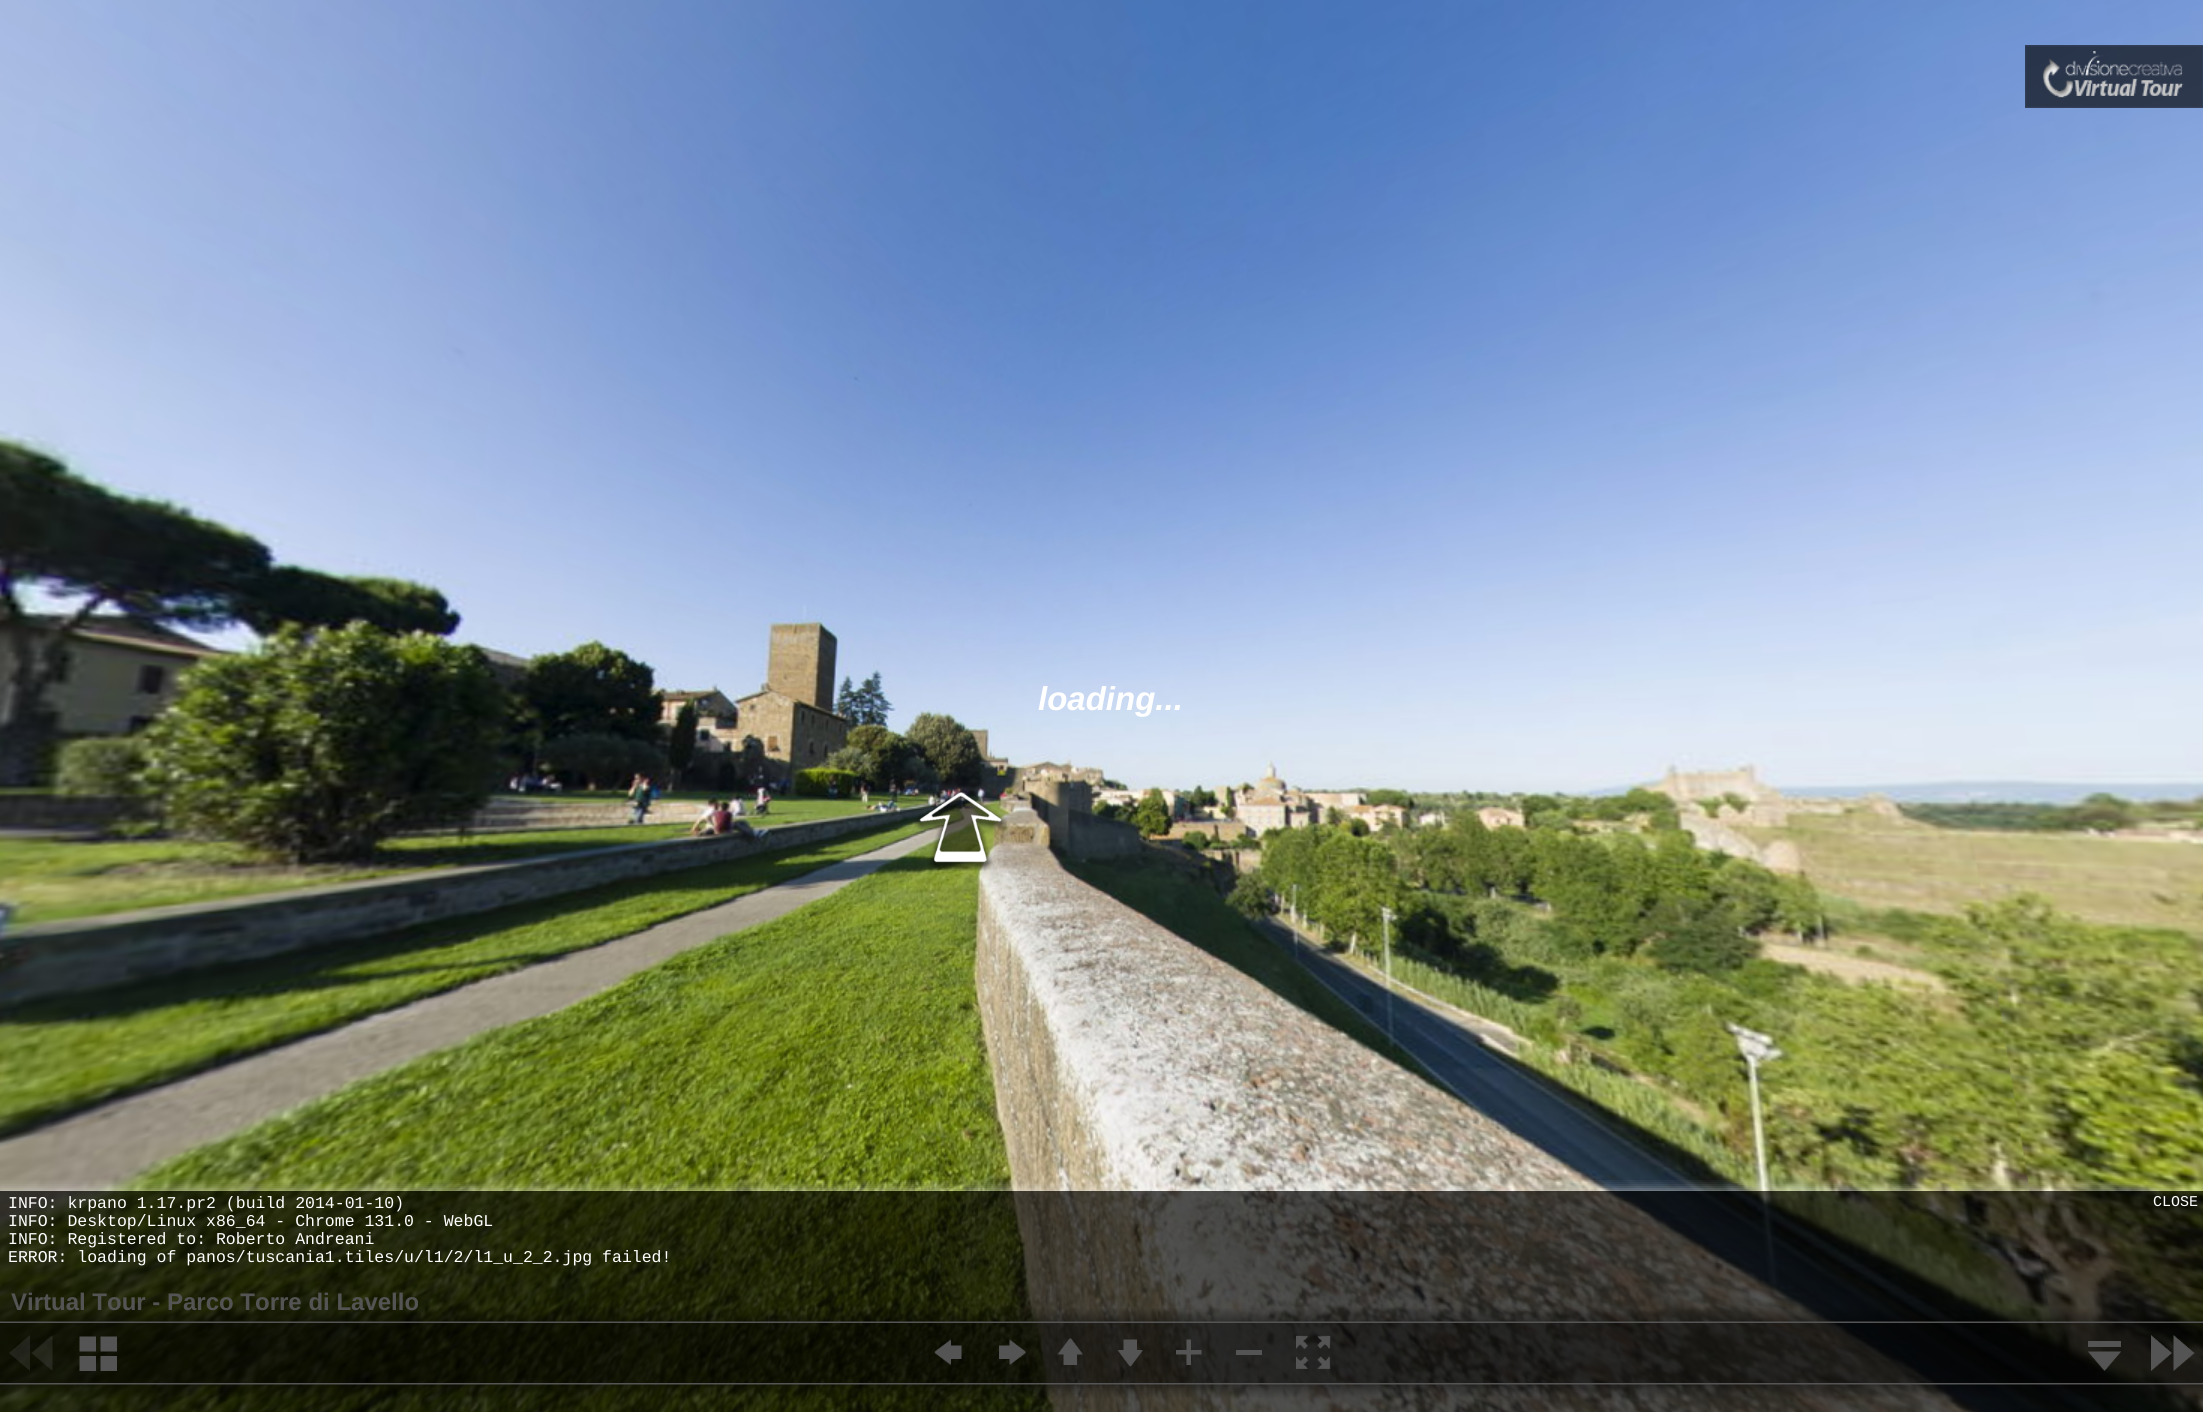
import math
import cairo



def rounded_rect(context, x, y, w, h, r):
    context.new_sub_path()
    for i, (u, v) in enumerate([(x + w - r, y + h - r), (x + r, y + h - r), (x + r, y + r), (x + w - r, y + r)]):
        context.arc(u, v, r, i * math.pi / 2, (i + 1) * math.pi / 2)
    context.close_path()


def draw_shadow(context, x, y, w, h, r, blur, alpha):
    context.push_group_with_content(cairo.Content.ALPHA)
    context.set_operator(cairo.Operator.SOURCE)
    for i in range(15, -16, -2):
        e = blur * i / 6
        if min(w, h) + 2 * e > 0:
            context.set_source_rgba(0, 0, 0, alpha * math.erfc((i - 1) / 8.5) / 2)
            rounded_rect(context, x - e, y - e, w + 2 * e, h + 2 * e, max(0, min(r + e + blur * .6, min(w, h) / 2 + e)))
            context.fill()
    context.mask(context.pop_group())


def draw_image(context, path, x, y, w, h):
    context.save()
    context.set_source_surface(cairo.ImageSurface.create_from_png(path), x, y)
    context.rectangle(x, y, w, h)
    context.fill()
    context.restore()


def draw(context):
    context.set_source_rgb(1, 1, 1)
    context.paint()
    draw_image(context, "images/1.png", 0, 0, 2203, 1412)
    draw_image(context, "images/2.png", 2025, 45, 178, 63)
    draw_image(context, "images/3.png", 914, 790, 94, 81)
    draw_image(context, "images/4.png", 0, 1308, 2203, 15)
    context.set_source_rgba(0, 0, 0, 0.5)
    context.rectangle(0, 1323, 2203, 60)
    context.fill()
    draw_image(context, "images/5.png", 9, 1335, 44, 36)
    draw_image(context, "images/6.png", 79, 1336, 38, 35)
    draw_image(context, "images/7.png", 934, 1339, 28, 27)
    draw_image(context, "images/8.png", 999, 1339, 27, 27)
    draw_image(context, "images/9.png", 1057, 1338, 27, 27)
    draw_image(context, "images/10.png", 1117, 1339, 27, 28)
    draw_image(context, "images/11.png", 1176, 1339, 26, 26)
    context.set_source_rgb(1, 1, 1)
    context.rectangle(1236, 1350, 26, 5)
    context.fill()
    draw_image(context, "images/12.png", 1296, 1335, 35, 35)
    draw_image(context, "images/13.png", 2088, 1341, 33, 30)
    draw_image(context, "images/14.png", 2151, 1335, 44, 36)
    draw_image(context, "images/15.png", 0, 1383, 2203, 15)
    context.save()
    context.rectangle(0, 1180, 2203, 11)
    context.clip()
    context.set_source_rgb(1, 1, 1)
    draw_shadow(context, 0, 1191, 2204, 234, 0, 6, 0.67)
    context.restore()
    context.select_font_face("Liberation Sans", cairo.FontSlant.ITALIC, cairo.FontWeight.BOLD)
    context.set_font_size(33)
    context.move_to(1038, 710)
    context.show_text("loading...")
    context.select_font_face("Liberation Sans", cairo.FontSlant.NORMAL, cairo.FontWeight.BOLD)
    context.set_font_size(24)
    context.move_to(11, 1310)
    context.show_text("Virtual Tour - Parco Torre di Lavello")
    context.set_source_rgba(0, 0, 0, 0.67)
    context.rectangle(0, 1191, 2203, 221)
    context.fill()
    context.select_font_face("Liberation Mono")
    context.set_font_size(16.5)
    context.set_source_rgb(1, 1, 1)
    context.move_to(8, 1208)
    context.show_text("INFO: krpano 1.17.pr2 (build 2014-01-10)")
    context.move_to(8, 1226)
    context.show_text("INFO: Desktop/Linux x86_64 - Chrome 131.0 - WebGL")
    context.move_to(8, 1244)
    context.show_text("INFO: Registered to: Roberto Andreani")
    context.move_to(8, 1262)
    context.show_text("ERROR: loading of panos/tuscania1.tiles/u/l1/2/l1_u_2_2.jpg failed!")
    context.set_font_size(15)
    context.move_to(2153, 1206)
    context.show_text("CLOSE")


surface = cairo.ImageSurface(cairo.Format.RGB24, 2203, 1412)
context = cairo.Context(surface)
options = cairo.FontOptions()
options.set_hint_metrics(cairo.HintMetrics.OFF)
options.set_hint_style(cairo.HintStyle.NONE)
context.set_font_options(options)
context.set_miter_limit(4)
draw(context)
surface.write_to_png("out.png")
